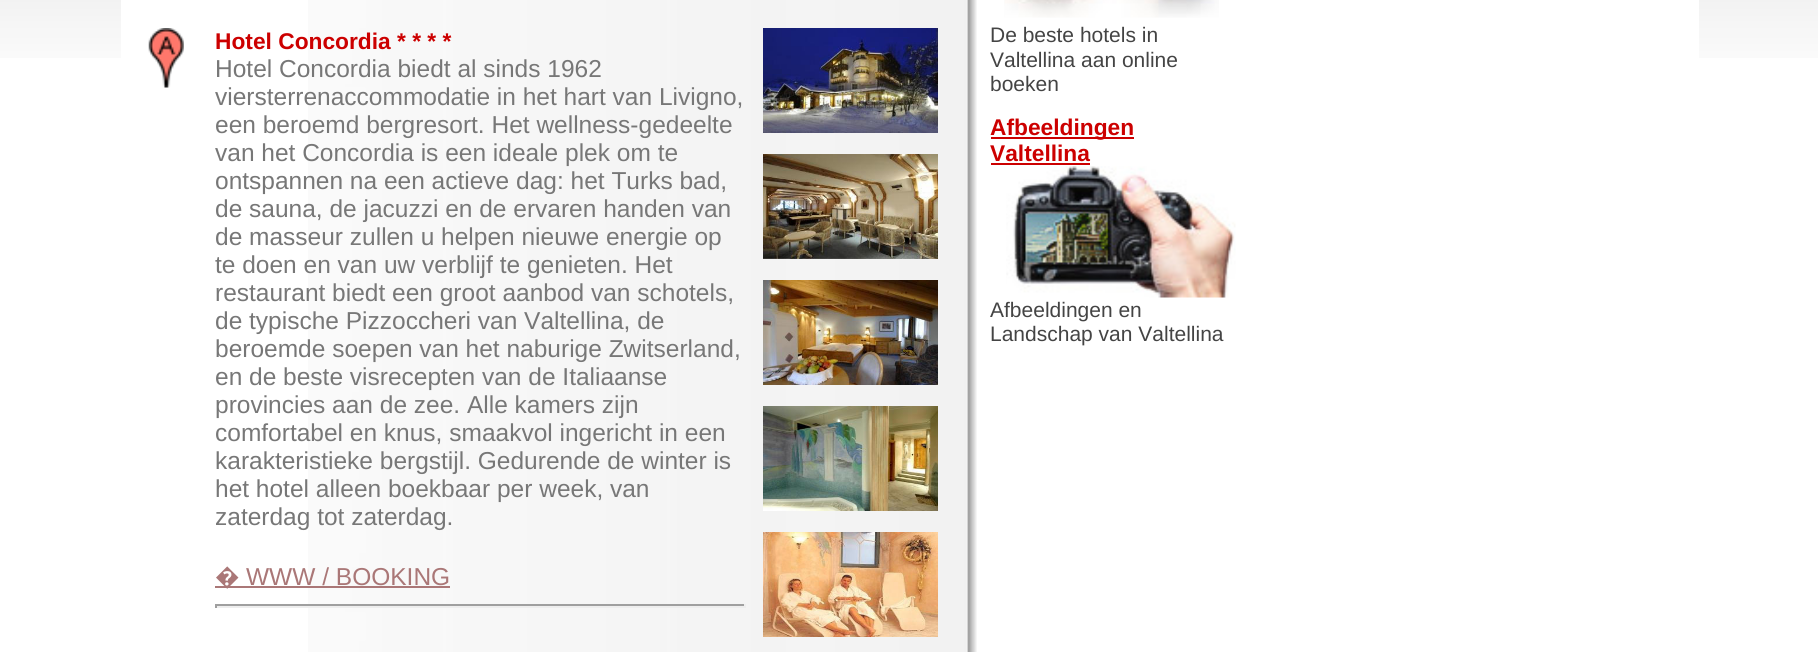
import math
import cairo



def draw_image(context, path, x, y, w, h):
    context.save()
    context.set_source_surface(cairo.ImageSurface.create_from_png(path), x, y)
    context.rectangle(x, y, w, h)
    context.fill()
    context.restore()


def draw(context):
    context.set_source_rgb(1, 1, 1)
    context.paint()
    draw_image(context, "images/1.png", 0, 0, 1818, 58)
    context.set_source_rgb(1, 1, 1)
    context.rectangle(121, 0, 1578, 58)
    context.fill()
    draw_image(context, "images/2.png", 308, 0, 669, 652)
    draw_image(context, "images/3.png", 148, 28, 36, 60)
    context.set_source_rgb(170 / 255, 119 / 255, 119 / 255)
    context.rectangle(215, 586, 235, 2)
    context.fill()
    context.set_source_rgb(159 / 255, 159 / 255, 159 / 255)
    context.rectangle(215, 604, 531, 2)
    context.fill()
    context.set_source_rgb(238 / 255, 238 / 255, 238 / 255)
    context.rectangle(744, 604, 2, 4)
    context.fill()
    context.rectangle(215, 606, 531, 2)
    context.fill()
    context.set_source_rgb(159 / 255, 159 / 255, 159 / 255)
    context.rectangle(215, 604, 2, 4)
    context.fill()
    draw_image(context, "images/4.png", 763, 28, 175, 105)
    draw_image(context, "images/5.png", 763, 154, 175, 105)
    draw_image(context, "images/6.png", 763, 280, 175, 105)
    draw_image(context, "images/7.png", 763, 406, 175, 105)
    draw_image(context, "images/8.png", 763, 532, 175, 105)
    draw_image(context, "images/9.png", 1004, 0, 215, 18)
    context.set_source_rgb(204 / 255, 0, 0)
    context.rectangle(991, 137, 143, 2)
    context.fill()
    context.rectangle(991, 163, 99, 2)
    context.fill()
    draw_image(context, "images/10.png", 1006, 166, 230, 132)
    context.select_font_face("Liberation Sans", cairo.FontSlant.NORMAL, cairo.FontWeight.BOLD)
    context.set_font_size(22.75)
    context.move_to(215, 49)
    context.show_text("Hotel Concordia * * * *")
    context.select_font_face("Liberation Sans")
    context.set_font_size(24.5)
    context.set_source_rgb(119 / 255, 119 / 255, 119 / 255)
    context.move_to(215, 77)
    context.show_text("Hotel Concordia biedt al sinds 1962")
    context.move_to(215, 105)
    context.show_text("viersterrenaccommodatie in het hart van Livigno,")
    context.move_to(215, 133)
    context.show_text("een beroemd bergresort. Het wellness-gedeelte")
    context.move_to(215, 161)
    context.show_text("van het Concordia is een ideale plek om te")
    context.move_to(215, 189)
    context.show_text("ontspannen na een actieve dag: het Turks bad,")
    context.move_to(215, 217)
    context.show_text("de sauna, de jacuzzi en de ervaren handen van")
    context.move_to(215, 245)
    context.show_text("de masseur zullen u helpen nieuwe energie op")
    context.move_to(215, 273)
    context.show_text("te doen en van uw verblijf te genieten. Het")
    context.move_to(215, 301)
    context.show_text("restaurant biedt een groot aanbod van schotels,")
    context.move_to(215, 329)
    context.show_text("de typische Pizzoccheri van Valtellina, de")
    context.move_to(215, 357)
    context.show_text("beroemde soepen van het naburige Zwitserland,")
    context.move_to(215, 385)
    context.show_text("en de beste visrecepten van de Italiaanse")
    context.move_to(215, 413)
    context.show_text("provincies aan de zee. Alle kamers zijn")
    context.move_to(215, 441)
    context.show_text("comfortabel en knus, smaakvol ingericht in een")
    context.move_to(215, 469)
    context.show_text("karakteristieke bergstijl. Gedurende de winter is")
    context.move_to(215, 497)
    context.show_text("het hotel alleen boekbaar per week, van")
    context.move_to(215, 525)
    context.show_text("zaterdag tot zaterdag.")
    context.select_font_face("Noto Sans")
    context.set_source_rgb(170 / 255, 119 / 255, 119 / 255)
    context.move_to(215, 585)
    context.show_text("�")
    context.select_font_face("Liberation Sans")
    context.move_to(246, 585)
    context.show_text("WWW / BOOKING")
    context.set_font_size(21)
    context.set_source_rgb(68 / 255, 68 / 255, 68 / 255)
    context.move_to(990, 42)
    context.show_text("De beste hotels in")
    context.move_to(990, 67)
    context.show_text("Valtellina aan online")
    context.move_to(990, 91)
    context.show_text("boeken")
    context.select_font_face("Liberation Sans", cairo.FontSlant.NORMAL, cairo.FontWeight.BOLD)
    context.set_font_size(22.75)
    context.set_source_rgb(204 / 255, 0, 0)
    context.move_to(990, 135)
    context.show_text("Afbeeldingen")
    context.move_to(990, 161)
    context.show_text("Valtellina")
    context.select_font_face("Liberation Sans")
    context.set_font_size(21)
    context.set_source_rgb(68 / 255, 68 / 255, 68 / 255)
    context.move_to(990, 317)
    context.show_text("Afbeeldingen en")
    context.move_to(990, 341)
    context.show_text("Landschap van Valtellina")


surface = cairo.ImageSurface(cairo.Format.RGB24, 1818, 652)
context = cairo.Context(surface)
options = cairo.FontOptions()
options.set_hint_metrics(cairo.HintMetrics.OFF)
options.set_hint_style(cairo.HintStyle.NONE)
context.set_font_options(options)
context.set_miter_limit(4)
draw(context)
surface.write_to_png("out.png")
